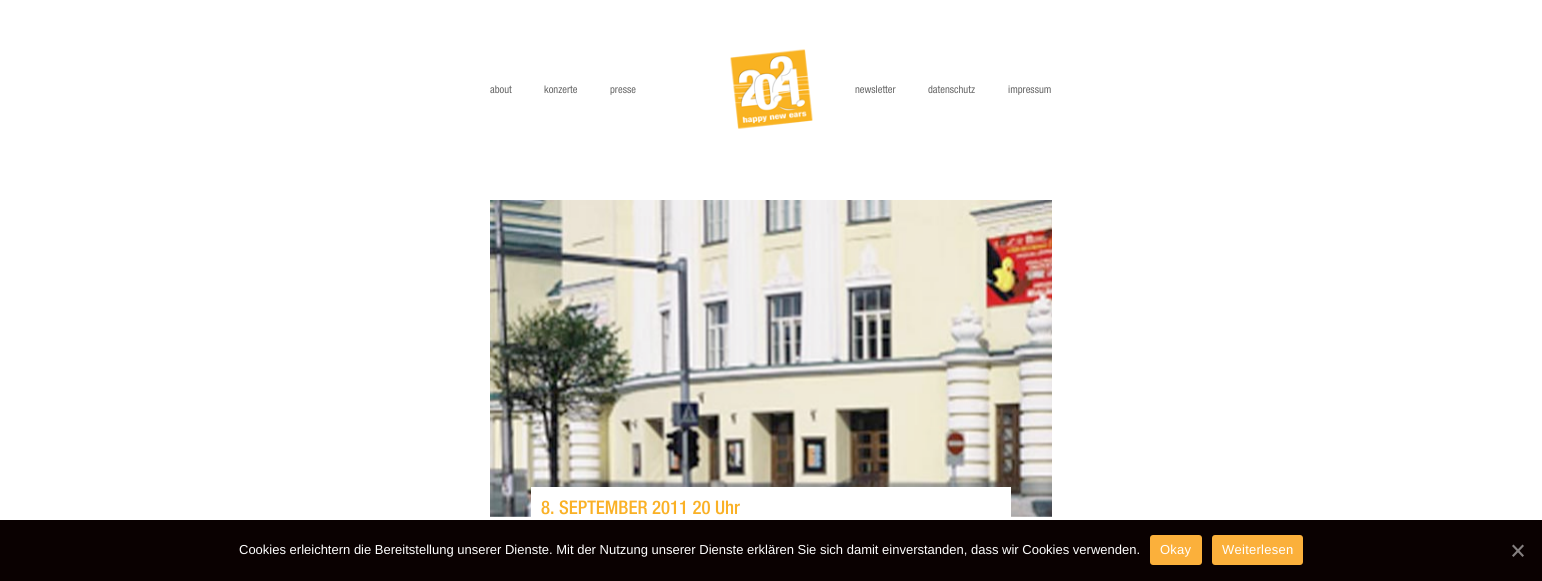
import math
import cairo



def draw_spaced(context, x, y, s, letter, word):
    context.move_to(x, y)
    for ch in s:
        context.show_text(ch)
        context.rel_move_to(letter + word * (ch == ' '), 0)


def rounded_rect(context, x, y, w, h, r):
    context.new_sub_path()
    for i, (u, v) in enumerate([(x + w - r, y + h - r), (x + r, y + h - r), (x + r, y + r), (x + w - r, y + r)]):
        context.arc(u, v, r, i * math.pi / 2, (i + 1) * math.pi / 2)
    context.close_path()


def draw_image(context, path, x, y, w, h):
    context.save()
    context.set_source_surface(cairo.ImageSurface.create_from_png(path), x, y)
    context.rectangle(x, y, w, h)
    context.fill()
    context.restore()


def draw(context):
    context.set_source_rgb(1, 1, 1)
    context.paint()
    draw_image(context, "images/1.png", 730, 49, 83, 80)
    draw_image(context, "images/2.png", 490, 200, 562, 317)
    context.set_source_rgb(1, 1, 1)
    context.rectangle(531, 487, 480, 30)
    context.fill()
    context.set_source_rgb(10 / 255, 1 / 255, 1 / 255)
    context.rectangle(0, 520, 1542, 61)
    context.fill()
    context.set_source_rgb(251 / 255, 176 / 255, 59 / 255)
    rounded_rect(context, 1150, 535, 52, 30, 3)
    context.fill()
    rounded_rect(context, 1212, 535, 91, 30, 3)
    context.fill()
    context.set_source_rgb(133 / 255, 128 / 255, 128 / 255)
    context.new_path()
    context.move_to(1522.5, 544.5)
    context.line_to(1524, 546)
    context.line_to(1513.5, 557)
    context.line_to(1512, 555.5)
    context.close_path()
    context.fill()
    context.new_path()
    context.move_to(1512, 546)
    context.line_to(1513.5, 544.5)
    context.line_to(1524, 555.5)
    context.line_to(1522.5, 557)
    context.close_path()
    context.fill()
    context.select_font_face("Helvetica Neue")
    context.set_font_size(10.5)
    context.set_source_rgb(102 / 255, 102 / 255, 102 / 255)
    context.move_to(490, 93)
    context.show_text("about")
    context.move_to(544, 93)
    context.show_text("konzerte")
    context.move_to(610, 93)
    context.show_text("presse")
    context.move_to(855, 93)
    context.show_text("newsletter")
    context.move_to(928, 93)
    context.show_text("datenschutz")
    context.move_to(1008, 93)
    context.show_text("impressum")
    context.select_font_face("Helvetica Neue Medium")
    context.set_font_size(18.75)
    context.set_source_rgb(250 / 255, 177 / 255, 38 / 255)
    context.move_to(541, 514)
    context.show_text("8. SEPTEMBER 2011 20 Uhr")
    context.select_font_face("Liberation Sans")
    context.set_font_size(13)
    context.set_source_rgb(1, 1, 1)
    context.move_to(239, 554)
    context.show_text("Cookies erleichtern die Bereitstellung unserer Dienste. Mit der Nutzung unserer Dienste erklären Sie sich damit einverstanden, dass wir Cookies verwenden.")
    draw_spaced(context, 1160, 554, "Okay", 0.25, 0)
    draw_spaced(context, 1222, 554, "Weiterlesen", 0.25, 0)


surface = cairo.ImageSurface(cairo.Format.RGB24, 1542, 581)
context = cairo.Context(surface)
options = cairo.FontOptions()
options.set_hint_metrics(cairo.HintMetrics.OFF)
options.set_hint_style(cairo.HintStyle.NONE)
context.set_font_options(options)
context.set_miter_limit(4)
draw(context)
surface.write_to_png("out.png")
